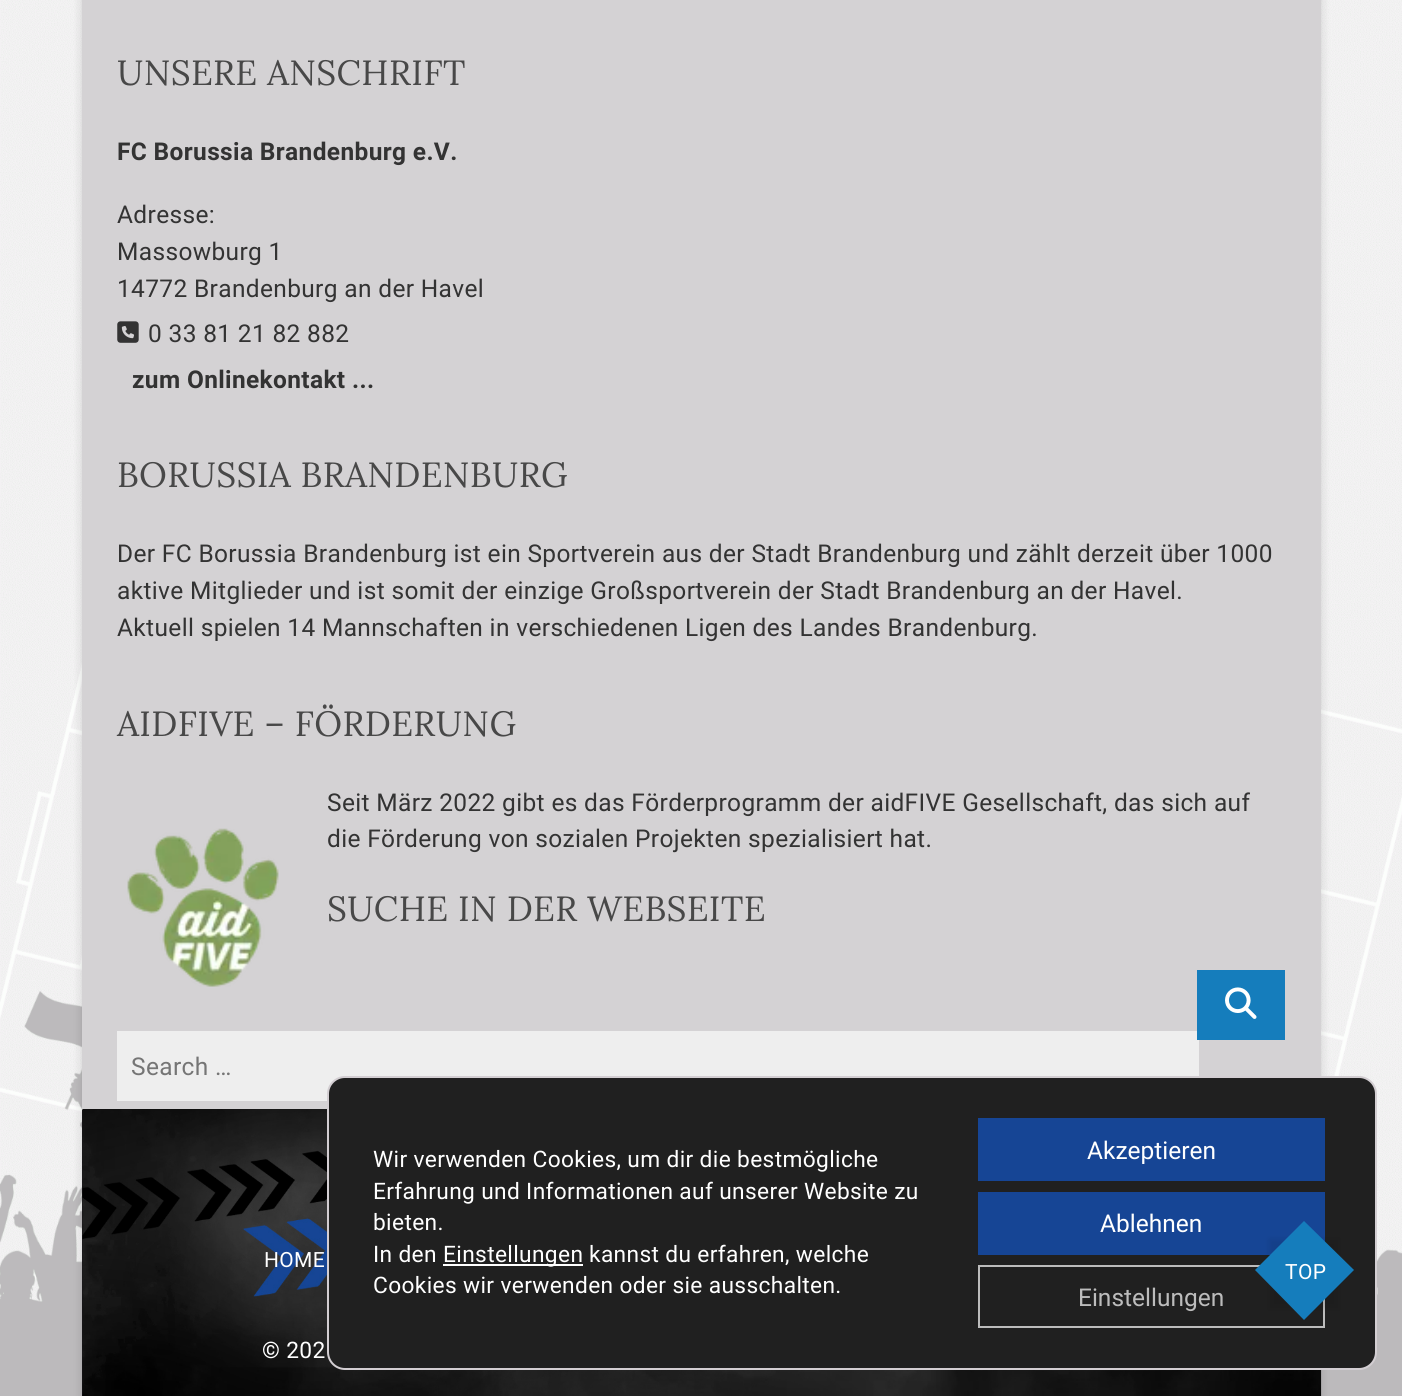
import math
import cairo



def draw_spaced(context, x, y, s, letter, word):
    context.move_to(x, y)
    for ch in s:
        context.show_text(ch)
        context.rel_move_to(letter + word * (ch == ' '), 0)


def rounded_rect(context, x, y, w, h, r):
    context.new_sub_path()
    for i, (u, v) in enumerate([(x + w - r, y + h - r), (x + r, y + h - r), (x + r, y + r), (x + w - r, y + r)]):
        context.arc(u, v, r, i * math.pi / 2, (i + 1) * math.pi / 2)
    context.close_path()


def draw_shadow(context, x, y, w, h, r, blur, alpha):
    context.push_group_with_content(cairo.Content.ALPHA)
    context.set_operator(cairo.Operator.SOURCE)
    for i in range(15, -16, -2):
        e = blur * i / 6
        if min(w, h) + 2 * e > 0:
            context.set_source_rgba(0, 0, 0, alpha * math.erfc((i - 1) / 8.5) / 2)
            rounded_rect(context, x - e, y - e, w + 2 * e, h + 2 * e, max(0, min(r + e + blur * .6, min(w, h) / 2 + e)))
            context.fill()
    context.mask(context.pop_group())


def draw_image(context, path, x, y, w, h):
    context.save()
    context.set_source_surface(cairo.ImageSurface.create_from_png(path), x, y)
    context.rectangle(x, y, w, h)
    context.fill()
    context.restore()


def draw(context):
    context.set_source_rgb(1, 1, 1)
    context.paint()
    draw_image(context, "images/1.png", 0, 0, 1402, 1396)
    context.set_source_rgb(0, 0, 0)
    draw_shadow(context, 82, -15, 1239, 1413, 0, 5, 0.15)
    context.set_source_rgb(212 / 255, 210 / 255, 212 / 255)
    context.rectangle(82, 0, 1239, 1110)
    context.fill()
    draw_image(context, "images/2.png", 117, 321, 22, 22)
    draw_image(context, "images/3.png", 127, 828, 152, 159)
    context.set_source_rgb(238 / 255, 238 / 255, 238 / 255)
    context.rectangle(117, 1031, 1082, 70)
    context.fill()
    context.set_source_rgb(21 / 255, 125 / 255, 188 / 255)
    context.rectangle(1197, 970, 88, 70)
    context.fill()
    draw_image(context, "images/4.png", 1225, 987, 32, 32)
    context.set_source_rgb(26 / 255, 23 / 255, 27 / 255)
    context.rectangle(82, 1110, 1, 286)
    context.fill()
    draw_image(context, "images/5.png", 82, 1109, 1240, 287)
    context.set_source_rgb(32 / 255, 32 / 255, 32 / 255)
    rounded_rect(context, 328, 1077, 1048, 292, 17)
    context.fill_preserve()
    context.set_source_rgb(211 / 255, 206 / 255, 210 / 255)
    context.stroke()
    context.set_source_rgb(22 / 255, 69 / 255, 149 / 255)
    context.rectangle(978, 1192, 347, 63)
    context.fill()
    context.rectangle(979, 1266, 345, 61)
    context.set_source_rgb(188 / 255, 188 / 255, 188 / 255)
    context.stroke()
    context.set_source_rgb(0, 0, 0)
    draw_shadow(context, 1269, 1239, 70, 70, 0, 2.5, 0.08)
    context.set_source_rgb(21 / 255, 125 / 255, 188 / 255)
    context.new_path()
    context.move_to(1304, 1221)
    context.line_to(1354, 1270)
    context.line_to(1304, 1320)
    context.line_to(1255, 1270)
    context.close_path()
    context.fill()
    context.set_source_rgb(1, 1, 1)
    context.rectangle(443, 1264, 140, 2)
    context.fill()
    context.set_source_rgb(22 / 255, 69 / 255, 149 / 255)
    context.rectangle(978, 1118, 347, 63)
    context.fill()
    context.select_font_face("Lora")
    context.set_font_size(35)
    context.set_source_rgb(72 / 255, 72 / 255, 72 / 255)
    draw_spaced(context, 117, 85, "UNSERE ANSCHRIFT", 0.35, 0)
    context.select_font_face("Roboto", cairo.FontSlant.NORMAL, cairo.FontWeight.BOLD)
    context.set_font_size(24.5)
    context.set_source_rgb(51 / 255, 51 / 255, 51 / 255)
    draw_spaced(context, 117, 160, "FC Borussia Brandenburg e.V.", 0.35, 0)
    context.select_font_face("Roboto")
    draw_spaced(context, 117, 223, "Adresse:", 0.35, 0)
    draw_spaced(context, 117, 260, "Massowburg 1", 0.35, 0)
    draw_spaced(context, 117, 297, "14772 Brandenburg an der Havel", 0.35, 0)
    draw_spaced(context, 148, 342, "0 33 81 21 82 882", 0.35, 0)
    context.select_font_face("Roboto", cairo.FontSlant.NORMAL, cairo.FontWeight.BOLD)
    draw_spaced(context, 132, 388, "zum Onlinekontakt ...", 0.35, 0)
    context.select_font_face("Lora")
    context.set_font_size(35)
    context.set_source_rgb(72 / 255, 72 / 255, 72 / 255)
    draw_spaced(context, 117, 487, "BORUSSIA BRANDENBURG", 0.35, 0)
    context.select_font_face("Roboto")
    context.set_font_size(24.5)
    context.set_source_rgb(51 / 255, 51 / 255, 51 / 255)
    draw_spaced(context, 117, 562, "Der FC Borussia Brandenburg ist ein Sportverein aus der Stadt Brandenburg und zählt derzeit über 1000", 0.35, 0)
    draw_spaced(context, 117, 599, "aktive Mitglieder und ist somit der einzige Großsportverein der Stadt Brandenburg an der Havel.", 0.35, 0)
    draw_spaced(context, 117, 636, "Aktuell spielen 14 Mannschaften in verschiedenen Ligen des Landes Brandenburg.", 0.35, 0)
    context.select_font_face("Lora")
    context.set_font_size(35)
    context.set_source_rgb(72 / 255, 72 / 255, 72 / 255)
    draw_spaced(context, 117, 736, "AIDFIVE – FÖRDERUNG", 0.35, 0)
    context.select_font_face("Roboto")
    context.set_font_size(24.5)
    context.set_source_rgb(51 / 255, 51 / 255, 51 / 255)
    draw_spaced(context, 327, 811, "Seit März 2022 gibt es das Förderprogramm der aidFIVE Gesellschaft, das sich auf", 0.35, 0)
    draw_spaced(context, 327, 847, "die Förderung von sozialen Projekten spezialisiert hat.", 0.35, 0)
    context.select_font_face("Lora")
    context.set_font_size(35)
    context.set_source_rgb(72 / 255, 72 / 255, 72 / 255)
    draw_spaced(context, 327, 921, "SUCHE IN DER WEBSEITE", 0.35, 0)
    context.select_font_face("Roboto")
    context.set_font_size(24.5)
    context.set_source_rgb(117 / 255, 117 / 255, 117 / 255)
    draw_spaced(context, 131, 1075, "Search …", 0.35, 0)
    context.set_font_size(21)
    context.set_source_rgb(1, 1, 1)
    draw_spaced(context, 264, 1267, "HOME", 0.35, 0)
    context.set_font_size(22.75)
    draw_spaced(context, 262, 1358, "© 202", 0.35, 0)
    context.set_font_size(21)
    draw_spaced(context, 1285, 1279, "TOP", 0.35, 0)
    context.set_font_size(22.75)
    draw_spaced(context, 373, 1167, "Wir verwenden Cookies, um dir die bestmögliche", 0.35, 0)
    draw_spaced(context, 373, 1199, "Erfahrung und Informationen auf unserer Website zu", 0.35, 0)
    draw_spaced(context, 373, 1230, "bieten.", 0.35, 0)
    draw_spaced(context, 373, 1262, "In den", 0.35, 0)
    draw_spaced(context, 443, 1262, "Einstellungen", 0.35, 0)
    draw_spaced(context, 589, 1262, "kannst du erfahren, welche", 0.35, 0)
    draw_spaced(context, 373, 1293, "Cookies wir verwenden oder sie ausschalten.", 0.35, 0)
    context.set_font_size(24.5)
    context.move_to(1087, 1159)
    context.show_text("Akzeptieren")
    context.move_to(1100, 1232)
    context.show_text("Ablehnen")
    context.set_source_rgb(188 / 255, 188 / 255, 188 / 255)
    context.move_to(1078, 1306)
    context.show_text("Einstellungen")


surface = cairo.ImageSurface(cairo.Format.RGB24, 1402, 1396)
context = cairo.Context(surface)
options = cairo.FontOptions()
options.set_hint_metrics(cairo.HintMetrics.OFF)
options.set_hint_style(cairo.HintStyle.NONE)
context.set_font_options(options)
context.set_miter_limit(4)
draw(context)
surface.write_to_png("out.png")
